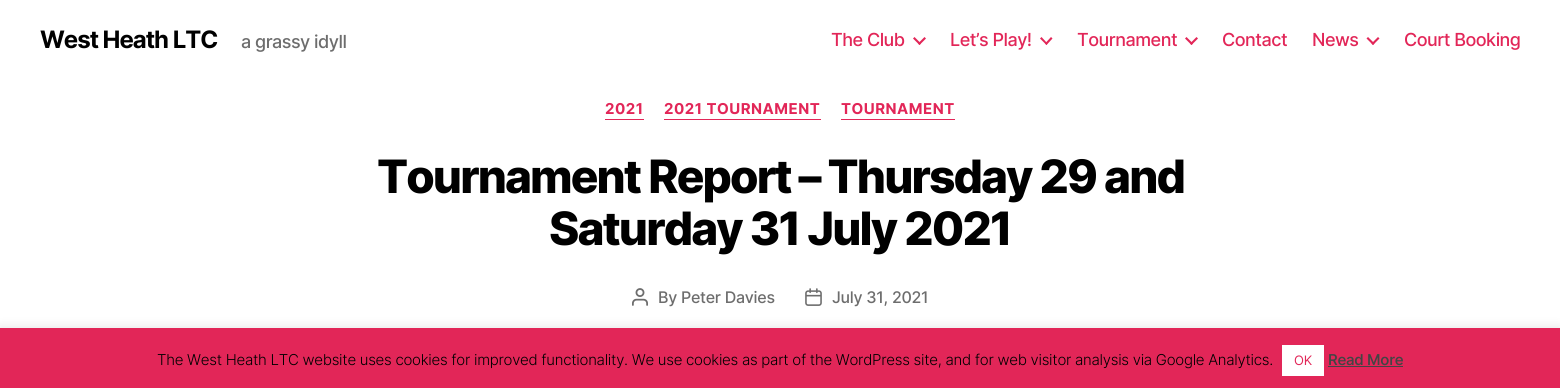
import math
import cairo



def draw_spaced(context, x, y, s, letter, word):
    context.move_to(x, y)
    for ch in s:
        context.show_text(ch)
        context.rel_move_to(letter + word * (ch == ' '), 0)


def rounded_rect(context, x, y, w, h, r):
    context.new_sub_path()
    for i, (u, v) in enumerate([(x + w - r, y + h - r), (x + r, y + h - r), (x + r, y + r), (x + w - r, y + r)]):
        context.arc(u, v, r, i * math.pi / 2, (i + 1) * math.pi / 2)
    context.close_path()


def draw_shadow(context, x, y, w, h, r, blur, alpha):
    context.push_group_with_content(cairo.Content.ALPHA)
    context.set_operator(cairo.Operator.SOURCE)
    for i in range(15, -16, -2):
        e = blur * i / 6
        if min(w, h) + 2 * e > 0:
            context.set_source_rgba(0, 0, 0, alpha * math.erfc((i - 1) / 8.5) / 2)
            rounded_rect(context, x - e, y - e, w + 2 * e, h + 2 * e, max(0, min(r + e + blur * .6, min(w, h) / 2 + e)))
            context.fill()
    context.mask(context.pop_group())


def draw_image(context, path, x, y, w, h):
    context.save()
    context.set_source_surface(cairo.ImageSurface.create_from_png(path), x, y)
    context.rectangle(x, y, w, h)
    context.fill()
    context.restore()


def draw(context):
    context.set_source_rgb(1, 1, 1)
    context.paint()
    context.set_source_rgb(226 / 255, 38 / 255, 88 / 255)
    context.new_path()
    context.move_to(913, 38.5)
    context.line_to(914.5, 37)
    context.line_to(921, 43.5)
    context.line_to(919.5, 45)
    context.close_path()
    context.fill()
    context.new_path()
    context.move_to(918, 43.5)
    context.line_to(924.5, 37)
    context.line_to(926, 38.5)
    context.line_to(919.5, 45)
    context.close_path()
    context.fill()
    context.new_path()
    context.move_to(1040, 38.5)
    context.line_to(1041.5, 37)
    context.line_to(1047.5, 43.5)
    context.line_to(1046.5, 45)
    context.close_path()
    context.fill()
    context.new_path()
    context.move_to(1045, 43.5)
    context.line_to(1051, 37)
    context.line_to(1052.5, 38.5)
    context.line_to(1046.5, 45)
    context.close_path()
    context.fill()
    context.new_path()
    context.move_to(1185, 38.5)
    context.line_to(1186.5, 37)
    context.line_to(1193, 43.5)
    context.line_to(1191.5, 45)
    context.close_path()
    context.fill()
    context.new_path()
    context.move_to(1190, 43.5)
    context.line_to(1196.5, 37)
    context.line_to(1198, 38.5)
    context.line_to(1191.5, 45)
    context.close_path()
    context.fill()
    context.new_path()
    context.move_to(1366.5, 38.5)
    context.line_to(1368, 37)
    context.line_to(1374.5, 43.5)
    context.line_to(1373, 45)
    context.close_path()
    context.fill()
    context.new_path()
    context.move_to(1371.5, 43.5)
    context.line_to(1378, 37)
    context.line_to(1379.5, 38.5)
    context.line_to(1373, 45)
    context.close_path()
    context.fill()
    context.rectangle(605, 119, 39, 1)
    context.fill()
    context.rectangle(664, 119, 157, 1)
    context.fill()
    context.rectangle(841, 119, 114, 1)
    context.fill()
    draw_image(context, "images/1.png", 632, 288, 16, 18)
    draw_image(context, "images/2.png", 805, 288, 17, 18)
    context.set_source_rgb(172 / 255, 171 / 255, 171 / 255)
    draw_shadow(context, 0, 327, 1560, 60, 0, 5, 0.3)
    context.set_source_rgb(226 / 255, 38 / 255, 88 / 255)
    context.rectangle(0, 328, 1560, 60)
    context.fill()
    context.set_source_rgb(1, 1, 1)
    context.rectangle(1282, 345, 42, 31)
    context.fill()
    context.set_source_rgb(68 / 255, 68 / 255, 68 / 255)
    context.rectangle(1328, 366, 75, 1)
    context.fill()
    context.select_font_face("Inter", cairo.FontSlant.NORMAL, cairo.FontWeight.BOLD)
    context.set_font_size(24)
    context.set_source_rgb(0, 0, 0)
    draw_spaced(context, 40, 48, "West Heath LTC", -1, 0)
    context.select_font_face("Inter Medium")
    context.set_font_size(18)
    context.set_source_rgb(109 / 255, 109 / 255, 109 / 255)
    draw_spaced(context, 241, 48, "a grassy idyll", -0.5, 0)
    context.set_source_rgb(226 / 255, 38 / 255, 88 / 255)
    draw_spaced(context, 831, 46, "The Club", -0.5, 0)
    draw_spaced(context, 950, 46, "Let’s Play!", -0.5, 0)
    draw_spaced(context, 1077, 46, "Tournament", -0.5, 0)
    draw_spaced(context, 1222, 46, "Contact", -0.5, 0)
    draw_spaced(context, 1312, 46, "News", -0.5, 0)
    draw_spaced(context, 1404, 46, "Court Booking", -0.5, 0)
    context.select_font_face("Inter", cairo.FontSlant.NORMAL, cairo.FontWeight.BOLD)
    context.set_font_size(15)
    draw_spaced(context, 605, 114, "2021", 0.5, 0)
    draw_spaced(context, 664, 114, "2021 TOURNAMENT", 0.5, 0)
    draw_spaced(context, 841, 114, "TOURNAMENT", 0.5, 0)
    context.select_font_face("Inter ExtraBold")
    context.set_font_size(46)
    context.set_source_rgb(0, 0, 0)
    draw_spaced(context, 377, 193, "Tournament Report – Thursday 29 and", -1.9, 0)
    draw_spaced(context, 549, 245, "Saturday 31 July 2021", -1.9, 0)
    context.select_font_face("Inter Medium")
    context.set_font_size(16)
    context.set_source_rgb(109 / 255, 109 / 255, 109 / 255)
    draw_spaced(context, 658, 303, "By Peter Davies", -0.27, 0)
    draw_spaced(context, 832, 303, "July 31, 2021", -0.27, 0)
    context.select_font_face("Inter Light")
    context.set_font_size(15)
    context.set_source_rgb(0, 0, 0)
    draw_spaced(context, 157, 365, "The West Heath LTC website uses cookies for improved functionality. We use cookies as part of the WordPress site, and for web visitor analysis via Google Analytics.", -0.27, 0)
    context.select_font_face("Inter")
    context.set_font_size(13)
    context.set_source_rgb(226 / 255, 38 / 255, 88 / 255)
    draw_spaced(context, 1294, 365, "OK", -0.27, 0)
    context.select_font_face("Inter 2 Medium")
    context.set_font_size(15)
    context.set_source_rgb(68 / 255, 68 / 255, 68 / 255)
    draw_spaced(context, 1328, 365, "Read More", -0.27, 0)


surface = cairo.ImageSurface(cairo.Format.RGB24, 1560, 388)
context = cairo.Context(surface)
options = cairo.FontOptions()
options.set_hint_metrics(cairo.HintMetrics.OFF)
options.set_hint_style(cairo.HintStyle.NONE)
context.set_font_options(options)
context.set_miter_limit(4)
draw(context)
surface.write_to_png("out.png")
